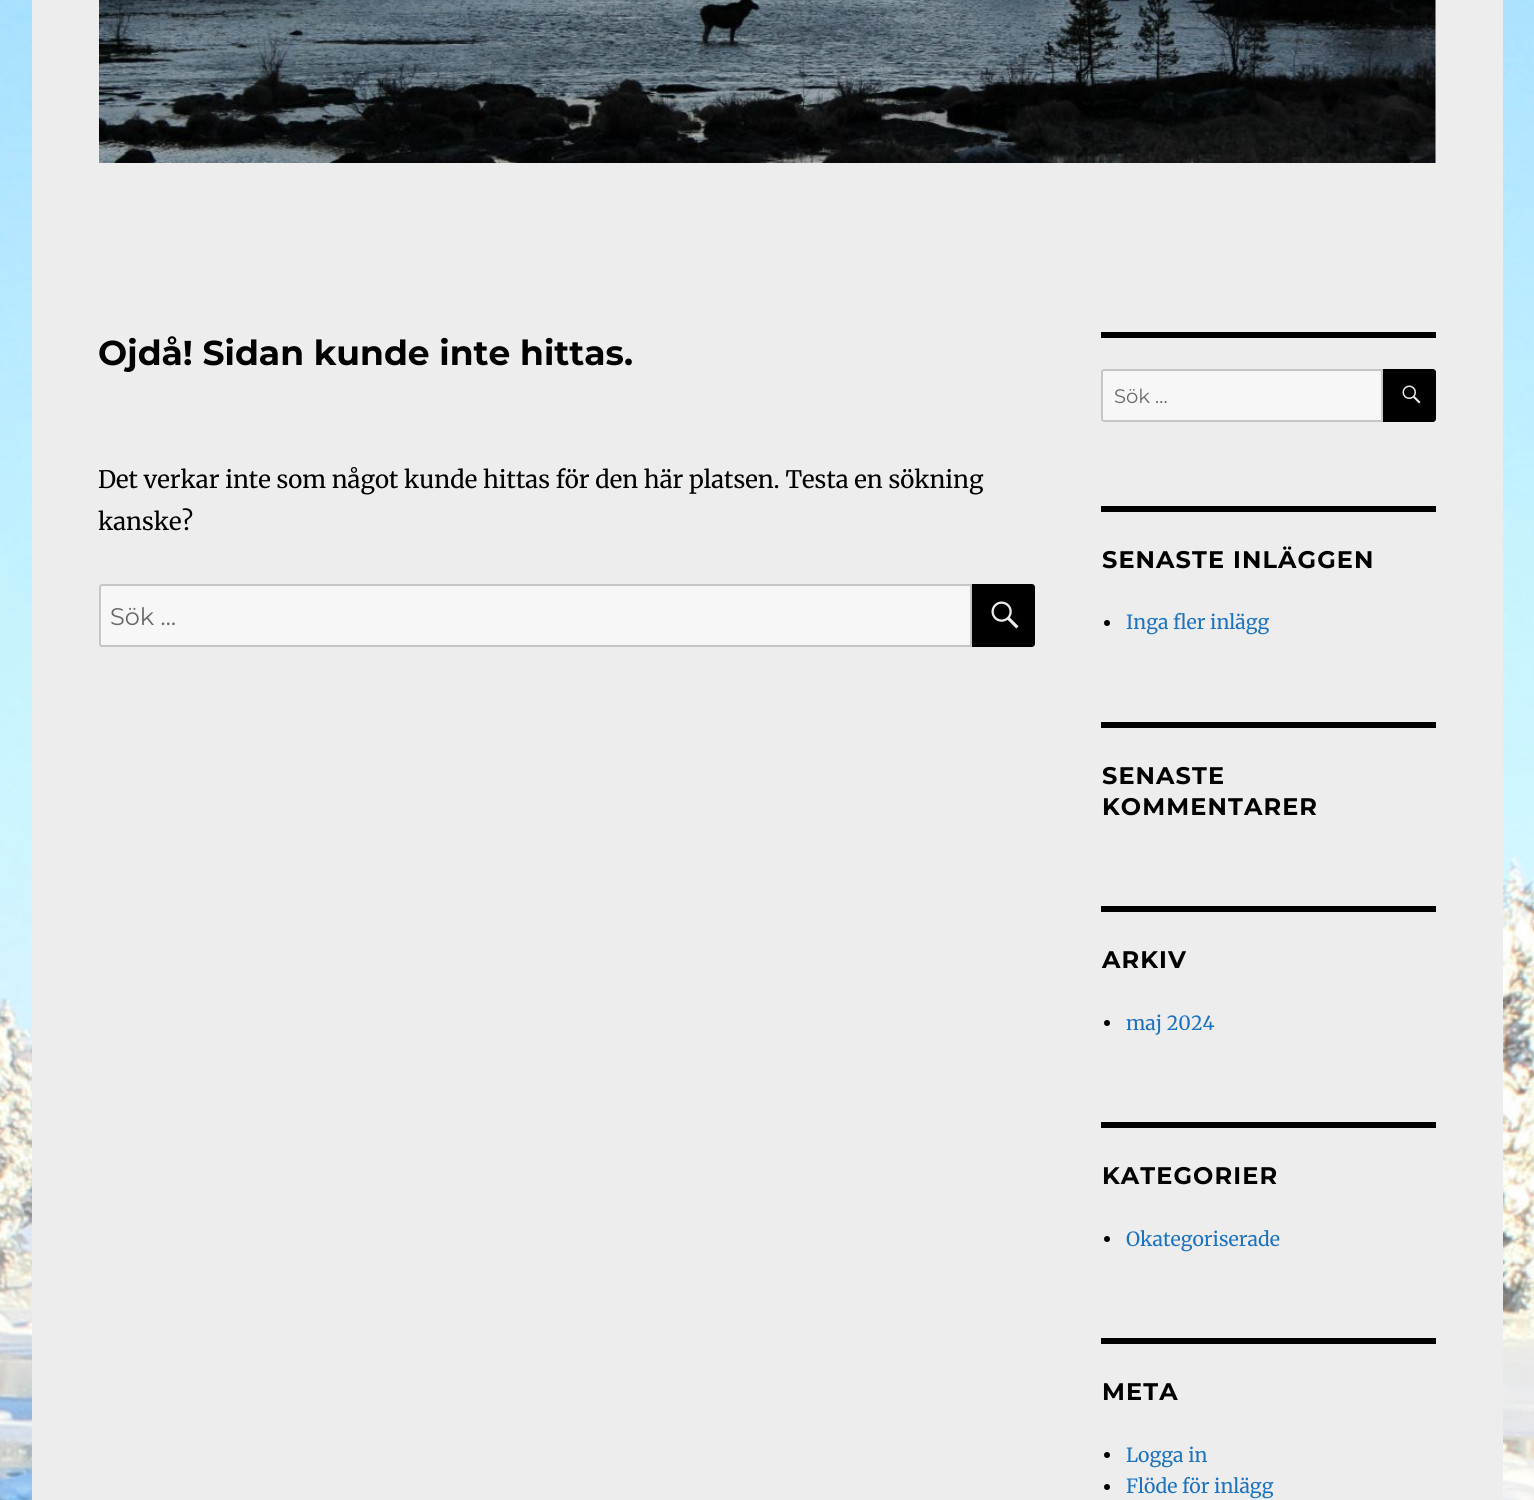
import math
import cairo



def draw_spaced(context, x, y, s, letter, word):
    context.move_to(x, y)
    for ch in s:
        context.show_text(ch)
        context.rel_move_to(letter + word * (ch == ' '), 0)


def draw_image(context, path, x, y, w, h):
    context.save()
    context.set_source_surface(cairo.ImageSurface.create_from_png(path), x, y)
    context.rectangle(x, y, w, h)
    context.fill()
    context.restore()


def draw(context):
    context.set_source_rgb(1, 1, 1)
    context.paint()
    draw_image(context, "images/1.png", 0, 0, 1534, 1500)
    context.set_source_rgb(237 / 255, 237 / 255, 237 / 255)
    context.rectangle(32, 0, 1471, 1500)
    context.fill()
    draw_image(context, "images/2.png", 99, 0, 1337, 163)
    context.set_source_rgb(247 / 255, 247 / 255, 247 / 255)
    context.new_path()
    context.move_to(102, 584)
    context.line_to(972, 584)
    context.line_to(972, 647)
    context.line_to(102, 647)
    context.curve_to(100.5, 647, 99, 645.5, 99, 644)
    context.line_to(99, 587)
    context.curve_to(99, 585.5, 100.5, 584, 102, 584)
    context.close_path()
    context.fill()
    context.new_path()
    context.move_to(102, 585)
    context.line_to(971, 585)
    context.line_to(971, 646)
    context.line_to(102, 646)
    context.curve_to(101, 646, 100, 645, 100, 644)
    context.line_to(100, 587)
    context.curve_to(100, 586, 101, 585, 102, 585)
    context.close_path()
    context.set_source_rgba(0, 0, 0, 0.2)
    context.stroke()
    context.set_source_rgb(0, 0, 0)
    context.new_path()
    context.move_to(972, 584)
    context.line_to(1032, 584)
    context.curve_to(1033.5, 584, 1035, 585.5, 1035, 587)
    context.line_to(1035, 644)
    context.curve_to(1035, 645.5, 1033.5, 647, 1032, 647)
    context.line_to(972, 647)
    context.close_path()
    context.fill()
    draw_image(context, "images/3.png", 991, 601, 28, 28)
    context.rectangle(1101, 332, 335, 6)
    context.fill()
    context.set_source_rgb(247 / 255, 247 / 255, 247 / 255)
    context.new_path()
    context.move_to(1104, 369)
    context.line_to(1383, 369)
    context.line_to(1383, 422)
    context.line_to(1104, 422)
    context.curve_to(1102.5, 422, 1101, 420.5, 1101, 419)
    context.line_to(1101, 372)
    context.curve_to(1101, 370.5, 1102.5, 369, 1104, 369)
    context.close_path()
    context.fill()
    context.new_path()
    context.move_to(1104, 370)
    context.line_to(1382, 370)
    context.line_to(1382, 421)
    context.line_to(1104, 421)
    context.curve_to(1103, 421, 1102, 420, 1102, 419)
    context.line_to(1102, 372)
    context.curve_to(1102, 371, 1103, 370, 1104, 370)
    context.close_path()
    context.set_source_rgba(0, 0, 0, 0.2)
    context.stroke()
    context.set_source_rgb(0, 0, 0)
    context.new_path()
    context.move_to(1383, 369)
    context.line_to(1433, 369)
    context.curve_to(1434.5, 369, 1436, 370.5, 1436, 372)
    context.line_to(1436, 419)
    context.curve_to(1436, 420.5, 1434.5, 422, 1433, 422)
    context.line_to(1383, 422)
    context.close_path()
    context.fill()
    draw_image(context, "images/4.png", 1402, 385, 19, 19)
    context.rectangle(1101, 506, 335, 6)
    context.fill()
    context.arc(1107, 623, 3, 0, 2 * math.pi)
    context.fill()
    context.rectangle(1101, 722, 335, 6)
    context.fill()
    context.rectangle(1101, 906, 335, 6)
    context.fill()
    context.arc(1107, 1023, 3, 0, 2 * math.pi)
    context.fill()
    context.rectangle(1101, 1122, 335, 6)
    context.fill()
    context.arc(1107, 1239, 3, 0, 2 * math.pi)
    context.fill()
    context.rectangle(1101, 1338, 335, 6)
    context.fill()
    context.arc(1107, 1455, 3, 0, 2 * math.pi)
    context.fill()
    context.arc(1107, 1487, 3, 0, 2 * math.pi)
    context.fill()
    context.select_font_face("Montserrat", cairo.FontSlant.NORMAL, cairo.FontWeight.BOLD)
    context.set_font_size(34.5)
    context.move_to(98, 365)
    context.show_text("Ojdå! Sidan kunde inte hittas.")
    context.select_font_face("Merriweather")
    context.set_font_size(24)
    context.move_to(98, 488)
    context.show_text("Det verkar inte som något kunde hittas för den här platsen. Testa en sökning")
    context.move_to(98, 530)
    context.show_text("kanske?")
    context.select_font_face("Montserrat")
    context.set_source_rgb(104 / 255, 104 / 255, 104 / 255)
    context.move_to(110, 625)
    context.show_text("Sök …")
    context.set_font_size(19.5)
    context.move_to(1114, 403)
    context.show_text("Sök …")
    context.select_font_face("Montserrat", cairo.FontSlant.NORMAL, cairo.FontWeight.BOLD)
    context.set_font_size(24)
    context.set_source_rgb(0, 0, 0)
    draw_spaced(context, 1102, 568, "SENASTE INLÄGGEN", 1.1, 0)
    context.select_font_face("Merriweather")
    context.set_font_size(19.5)
    context.set_source_rgb(30 / 255, 115 / 255, 190 / 255)
    context.move_to(1126, 629)
    context.show_text("Inga fler inlägg")
    context.select_font_face("Montserrat", cairo.FontSlant.NORMAL, cairo.FontWeight.BOLD)
    context.set_font_size(24)
    context.set_source_rgb(0, 0, 0)
    draw_spaced(context, 1102, 784, "SENASTE", 1.1, 0)
    draw_spaced(context, 1102, 815, "KOMMENTARER", 1.1, 0)
    draw_spaced(context, 1102, 968, "ARKIV", 1.1, 0)
    context.select_font_face("Merriweather")
    context.set_font_size(19.5)
    context.set_source_rgb(30 / 255, 115 / 255, 190 / 255)
    context.move_to(1126, 1030)
    context.show_text("maj 2024")
    context.select_font_face("Montserrat", cairo.FontSlant.NORMAL, cairo.FontWeight.BOLD)
    context.set_font_size(24)
    context.set_source_rgb(0, 0, 0)
    draw_spaced(context, 1102, 1184, "KATEGORIER", 1.1, 0)
    context.select_font_face("Merriweather")
    context.set_font_size(19.5)
    context.set_source_rgb(30 / 255, 115 / 255, 190 / 255)
    context.move_to(1126, 1246)
    context.show_text("Okategoriserade")
    context.select_font_face("Montserrat", cairo.FontSlant.NORMAL, cairo.FontWeight.BOLD)
    context.set_font_size(24)
    context.set_source_rgb(0, 0, 0)
    draw_spaced(context, 1102, 1400, "META", 1.1, 0)
    context.select_font_face("Merriweather")
    context.set_font_size(19.5)
    context.set_source_rgb(30 / 255, 115 / 255, 190 / 255)
    context.move_to(1126, 1462)
    context.show_text("Logga in")
    context.move_to(1126, 1493)
    context.show_text("Flöde för inlägg")


surface = cairo.ImageSurface(cairo.Format.RGB24, 1534, 1500)
context = cairo.Context(surface)
options = cairo.FontOptions()
options.set_hint_metrics(cairo.HintMetrics.OFF)
options.set_hint_style(cairo.HintStyle.NONE)
context.set_font_options(options)
context.set_miter_limit(4)
draw(context)
surface.write_to_png("out.png")
